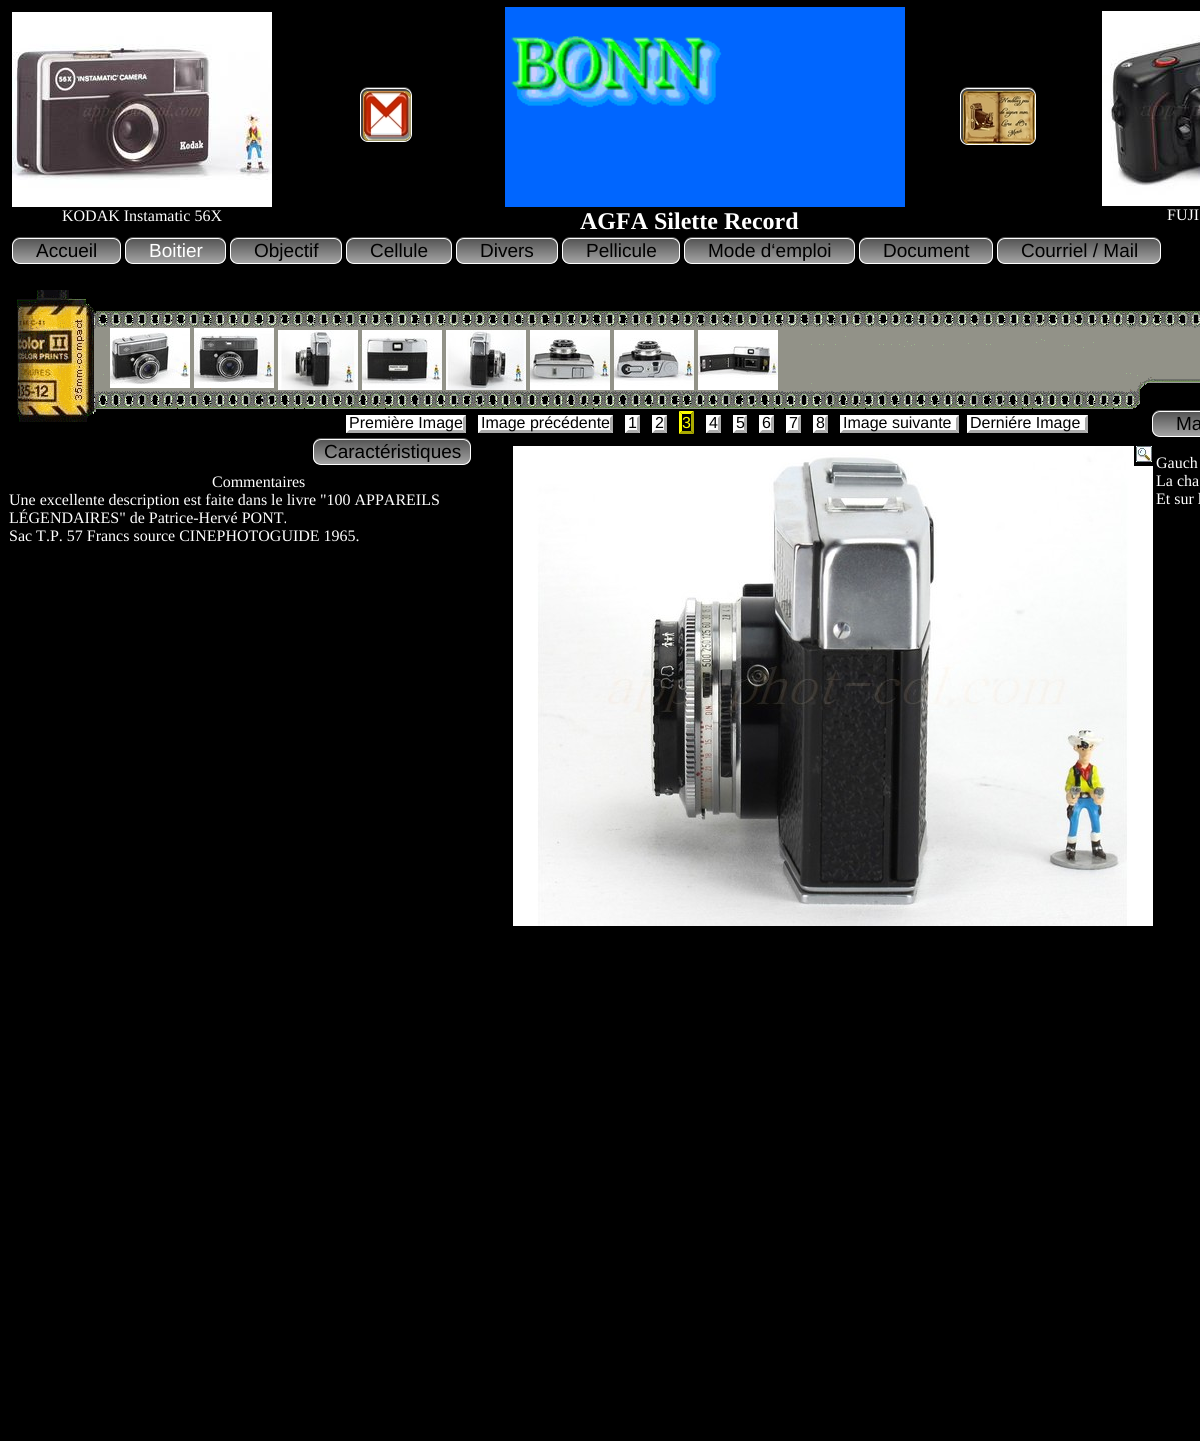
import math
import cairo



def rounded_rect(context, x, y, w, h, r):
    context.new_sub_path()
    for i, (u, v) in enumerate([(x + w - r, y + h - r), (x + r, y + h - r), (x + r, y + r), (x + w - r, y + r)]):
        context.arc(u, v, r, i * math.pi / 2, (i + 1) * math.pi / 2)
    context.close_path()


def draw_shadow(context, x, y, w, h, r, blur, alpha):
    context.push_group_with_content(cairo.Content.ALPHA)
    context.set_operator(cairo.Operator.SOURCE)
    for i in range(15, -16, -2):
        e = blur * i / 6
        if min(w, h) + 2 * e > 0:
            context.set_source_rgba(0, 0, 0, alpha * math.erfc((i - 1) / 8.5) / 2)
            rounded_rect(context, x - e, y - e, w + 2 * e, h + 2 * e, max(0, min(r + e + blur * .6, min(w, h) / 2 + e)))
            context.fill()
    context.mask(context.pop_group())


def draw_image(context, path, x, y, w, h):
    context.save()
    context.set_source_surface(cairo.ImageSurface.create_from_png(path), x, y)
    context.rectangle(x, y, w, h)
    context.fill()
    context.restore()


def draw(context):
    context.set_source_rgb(0, 0, 0)
    context.paint()
    context.set_source_rgb(102 / 255, 102 / 255, 102 / 255)
    context.new_path()
    context.move_to(368, 87)
    context.curve_to(363, 87, 360, 91, 360, 96)
    context.curve_to(360, 92, 364, 88, 368, 88)
    context.line_to(404, 88)
    context.curve_to(408, 88, 412, 92, 412, 96)
    context.curve_to(412, 91, 409, 87, 404, 87)
    context.close_path()
    context.fill()
    context.set_source_rgb(0, 0, 0)
    draw_shadow(context, 360, 88, 52, 54, 8, 2.5, 0.5)
    context.set_source_rgb(68 / 255, 68 / 255, 68 / 255)
    rounded_rect(context, 360.5, 88.5, 51, 53, 7.5)
    context.fill_preserve()
    context.set_source_rgb(1, 1, 1)
    context.set_line_width(1)
    context.stroke()
    draw_image(context, "images/1.png", 363, 91, 48, 50)
    draw_image(context, "images/2.png", 505, 7, 400, 200)
    context.set_source_rgb(102 / 255, 102 / 255, 102 / 255)
    context.new_path()
    context.move_to(968, 87)
    context.curve_to(963, 87, 960, 91, 960, 96)
    context.curve_to(960, 92, 964, 88, 968, 88)
    context.line_to(1028, 88)
    context.curve_to(1032, 88, 1036, 92, 1036, 96)
    context.curve_to(1036, 91, 1033, 87, 1028, 87)
    context.close_path()
    context.fill()
    context.set_source_rgb(0, 0, 0)
    draw_shadow(context, 960, 88, 76, 57, 8, 2.5, 0.5)
    context.set_source_rgb(68 / 255, 68 / 255, 68 / 255)
    rounded_rect(context, 960.5, 88.5, 75, 56, 7.5)
    context.fill_preserve()
    context.set_source_rgb(1, 1, 1)
    context.stroke()
    draw_image(context, "images/3.png", 963, 91, 72, 53)
    draw_image(context, "images/4.png", 12, 12, 260, 195)
    draw_image(context, "images/5.png", 1102, 11, 98, 195)
    context.set_source_rgb(102 / 255, 102 / 255, 102 / 255)
    context.new_path()
    context.move_to(20, 237)
    context.curve_to(15, 237, 12, 241, 12, 246)
    context.curve_to(12, 242, 16, 238, 20, 238)
    context.line_to(113, 238)
    context.curve_to(117, 238, 121, 242, 121, 246)
    context.curve_to(121, 241, 118, 237, 113, 237)
    context.close_path()
    context.fill()
    context.set_source_rgb(0, 0, 0)
    draw_shadow(context, 12, 238, 109, 26, 8, 2.5, 0.5)
    context.save()
    rounded_rect(context, 12, 238, 109, 26, 8)
    context.clip()
    gradient = cairo.LinearGradient(67, 239, 67, 263)
    gradient.add_color_stop_rgba(0, 85 / 255, 85 / 255, 85 / 255, 1)
    gradient.add_color_stop_rgba(1, 164 / 255, 164 / 255, 164 / 255, 1)
    context.set_source(gradient)
    context.rectangle(12, 239, 109, 24)
    context.fill()
    context.restore()
    rounded_rect(context, 12.5, 238.5, 108, 25, 7.5)
    context.set_source_rgb(1, 1, 1)
    context.stroke()
    context.set_source_rgb(102 / 255, 102 / 255, 102 / 255)
    context.new_path()
    context.move_to(133, 237)
    context.curve_to(128, 237, 125, 241, 125, 246)
    context.curve_to(125, 242, 129, 238, 133, 238)
    context.line_to(218, 238)
    context.curve_to(222, 238, 226, 242, 226, 246)
    context.curve_to(226, 241, 223, 237, 218, 237)
    context.close_path()
    context.fill()
    context.set_source_rgb(0, 0, 0)
    draw_shadow(context, 125, 238, 101, 26, 8, 2.5, 0.5)
    context.save()
    rounded_rect(context, 125, 238, 101, 26, 8)
    context.clip()
    gradient = cairo.LinearGradient(176, 239, 176, 263)
    gradient.add_color_stop_rgba(0, 85 / 255, 85 / 255, 85 / 255, 1)
    gradient.add_color_stop_rgba(1, 164 / 255, 164 / 255, 164 / 255, 1)
    context.set_source(gradient)
    context.rectangle(125, 239, 101, 24)
    context.fill()
    context.restore()
    rounded_rect(context, 125.5, 238.5, 100, 25, 7.5)
    context.set_source_rgb(1, 1, 1)
    context.stroke()
    context.set_source_rgb(102 / 255, 102 / 255, 102 / 255)
    context.new_path()
    context.move_to(238, 237)
    context.curve_to(233, 237, 230, 241, 230, 246)
    context.curve_to(230, 242, 234, 238, 238, 238)
    context.line_to(334, 238)
    context.curve_to(338, 238, 342, 242, 342, 246)
    context.curve_to(342, 241, 339, 237, 334, 237)
    context.close_path()
    context.fill()
    context.set_source_rgb(0, 0, 0)
    draw_shadow(context, 230, 238, 112, 26, 8, 2.5, 0.5)
    context.save()
    rounded_rect(context, 230, 238, 112, 26, 8)
    context.clip()
    gradient = cairo.LinearGradient(286, 239, 286, 263)
    gradient.add_color_stop_rgba(0, 85 / 255, 85 / 255, 85 / 255, 1)
    gradient.add_color_stop_rgba(1, 164 / 255, 164 / 255, 164 / 255, 1)
    context.set_source(gradient)
    context.rectangle(230, 239, 112, 24)
    context.fill()
    context.restore()
    rounded_rect(context, 230.5, 238.5, 111, 25, 7.5)
    context.set_source_rgb(1, 1, 1)
    context.stroke()
    context.set_source_rgb(102 / 255, 102 / 255, 102 / 255)
    context.new_path()
    context.move_to(354, 237)
    context.curve_to(349, 237, 346, 241, 346, 246)
    context.curve_to(346, 242, 350, 238, 354, 238)
    context.line_to(444, 238)
    context.curve_to(448, 238, 452, 242, 452, 246)
    context.curve_to(452, 241, 449, 237, 444, 237)
    context.close_path()
    context.fill()
    context.set_source_rgb(0, 0, 0)
    draw_shadow(context, 346, 238, 106, 26, 8, 2.5, 0.5)
    context.save()
    rounded_rect(context, 346, 238, 106, 26, 8)
    context.clip()
    gradient = cairo.LinearGradient(399, 239, 399, 263)
    gradient.add_color_stop_rgba(0, 85 / 255, 85 / 255, 85 / 255, 1)
    gradient.add_color_stop_rgba(1, 164 / 255, 164 / 255, 164 / 255, 1)
    context.set_source(gradient)
    context.rectangle(346, 239, 106, 24)
    context.fill()
    context.restore()
    rounded_rect(context, 346.5, 238.5, 105, 25, 7.5)
    context.set_source_rgb(1, 1, 1)
    context.stroke()
    context.set_source_rgb(102 / 255, 102 / 255, 102 / 255)
    context.new_path()
    context.move_to(464, 237)
    context.curve_to(459, 237, 456, 241, 456, 246)
    context.curve_to(456, 242, 460, 238, 464, 238)
    context.line_to(550, 238)
    context.curve_to(554, 238, 558, 242, 558, 246)
    context.curve_to(558, 241, 555, 237, 550, 237)
    context.close_path()
    context.fill()
    context.set_source_rgb(0, 0, 0)
    draw_shadow(context, 456, 238, 102, 26, 8, 2.5, 0.5)
    context.save()
    rounded_rect(context, 456, 238, 102, 26, 8)
    context.clip()
    gradient = cairo.LinearGradient(507, 239, 507, 263)
    gradient.add_color_stop_rgba(0, 85 / 255, 85 / 255, 85 / 255, 1)
    gradient.add_color_stop_rgba(1, 164 / 255, 164 / 255, 164 / 255, 1)
    context.set_source(gradient)
    context.rectangle(456, 239, 102, 24)
    context.fill()
    context.restore()
    rounded_rect(context, 456.5, 238.5, 101, 25, 7.5)
    context.set_source_rgb(1, 1, 1)
    context.stroke()
    context.set_source_rgb(102 / 255, 102 / 255, 102 / 255)
    context.new_path()
    context.move_to(570, 237)
    context.curve_to(565, 237, 562, 241, 562, 246)
    context.curve_to(562, 242, 566, 238, 570, 238)
    context.line_to(672, 238)
    context.curve_to(676, 238, 680, 242, 680, 246)
    context.curve_to(680, 241, 677, 237, 672, 237)
    context.close_path()
    context.fill()
    context.set_source_rgb(0, 0, 0)
    draw_shadow(context, 562, 238, 118, 26, 8, 2.5, 0.5)
    context.save()
    rounded_rect(context, 562, 238, 118, 26, 8)
    context.clip()
    gradient = cairo.LinearGradient(621, 239, 621, 263)
    gradient.add_color_stop_rgba(0, 85 / 255, 85 / 255, 85 / 255, 1)
    gradient.add_color_stop_rgba(1, 164 / 255, 164 / 255, 164 / 255, 1)
    context.set_source(gradient)
    context.rectangle(562, 239, 118, 24)
    context.fill()
    context.restore()
    rounded_rect(context, 562.5, 238.5, 117, 25, 7.5)
    context.set_source_rgb(1, 1, 1)
    context.stroke()
    context.set_source_rgb(102 / 255, 102 / 255, 102 / 255)
    context.new_path()
    context.move_to(692, 237)
    context.curve_to(687, 237, 684, 241, 684, 246)
    context.curve_to(684, 242, 688, 238, 692, 238)
    context.line_to(847, 238)
    context.curve_to(851, 238, 855, 242, 855, 246)
    context.curve_to(855, 241, 852, 237, 847, 237)
    context.close_path()
    context.fill()
    context.set_source_rgb(0, 0, 0)
    draw_shadow(context, 684, 238, 171, 26, 8, 2.5, 0.5)
    context.save()
    rounded_rect(context, 684, 238, 171, 26, 8)
    context.clip()
    gradient = cairo.LinearGradient(770, 239, 770, 263)
    gradient.add_color_stop_rgba(0, 85 / 255, 85 / 255, 85 / 255, 1)
    gradient.add_color_stop_rgba(1, 164 / 255, 164 / 255, 164 / 255, 1)
    context.set_source(gradient)
    context.rectangle(684, 239, 171, 24)
    context.fill()
    context.restore()
    rounded_rect(context, 684.5, 238.5, 170, 25, 7.5)
    context.set_source_rgb(1, 1, 1)
    context.stroke()
    context.set_source_rgb(102 / 255, 102 / 255, 102 / 255)
    context.new_path()
    context.move_to(867, 237)
    context.curve_to(862, 237, 859, 241, 859, 246)
    context.curve_to(859, 242, 863, 238, 867, 238)
    context.line_to(985, 238)
    context.curve_to(989, 238, 993, 242, 993, 246)
    context.curve_to(993, 241, 990, 237, 985, 237)
    context.close_path()
    context.fill()
    context.set_source_rgb(0, 0, 0)
    draw_shadow(context, 859, 238, 134, 26, 8, 2.5, 0.5)
    context.save()
    rounded_rect(context, 859, 238, 134, 26, 8)
    context.clip()
    gradient = cairo.LinearGradient(926, 239, 926, 263)
    gradient.add_color_stop_rgba(0, 85 / 255, 85 / 255, 85 / 255, 1)
    gradient.add_color_stop_rgba(1, 164 / 255, 164 / 255, 164 / 255, 1)
    context.set_source(gradient)
    context.rectangle(859, 239, 134, 24)
    context.fill()
    context.restore()
    rounded_rect(context, 859.5, 238.5, 133, 25, 7.5)
    context.set_source_rgb(1, 1, 1)
    context.stroke()
    context.set_source_rgb(102 / 255, 102 / 255, 102 / 255)
    context.new_path()
    context.move_to(1005, 237)
    context.curve_to(1000, 237, 997, 241, 997, 246)
    context.curve_to(997, 242, 1001, 238, 1005, 238)
    context.line_to(1153, 238)
    context.curve_to(1157, 238, 1161, 242, 1161, 246)
    context.curve_to(1161, 241, 1158, 237, 1153, 237)
    context.close_path()
    context.fill()
    context.set_source_rgb(0, 0, 0)
    draw_shadow(context, 997, 238, 164, 26, 8, 2.5, 0.5)
    context.save()
    rounded_rect(context, 997, 238, 164, 26, 8)
    context.clip()
    gradient = cairo.LinearGradient(1079, 239, 1079, 263)
    gradient.add_color_stop_rgba(0, 85 / 255, 85 / 255, 85 / 255, 1)
    gradient.add_color_stop_rgba(1, 164 / 255, 164 / 255, 164 / 255, 1)
    context.set_source(gradient)
    context.rectangle(997, 239, 164, 24)
    context.fill()
    context.restore()
    rounded_rect(context, 997.5, 238.5, 163, 25, 7.5)
    context.set_source_rgb(1, 1, 1)
    context.stroke()
    draw_image(context, "images/6.png", 17, 290, 79, 132)
    draw_image(context, "images/7.png", 96, 311, 1104, 98)
    draw_image(context, "images/8.png", 110, 328, 80, 60)
    draw_image(context, "images/9.png", 194, 328, 80, 60)
    draw_image(context, "images/10.png", 278, 330, 80, 60)
    draw_image(context, "images/11.png", 362, 330, 80, 60)
    draw_image(context, "images/12.png", 446, 330, 80, 60)
    draw_image(context, "images/13.png", 530, 330, 80, 60)
    draw_image(context, "images/14.png", 614, 330, 80, 60)
    draw_image(context, "images/15.png", 698, 330, 80, 60)
    context.rectangle(346, 415, 120, 18)
    context.fill()
    context.set_source_rgb(170 / 255, 170 / 255, 170 / 255)
    context.new_path()
    context.move_to(466, 415)
    context.line_to(466, 433)
    context.line_to(463, 430)
    context.line_to(463, 418)
    context.close_path()
    context.fill()
    context.new_path()
    context.move_to(466, 433)
    context.line_to(346, 433)
    context.line_to(349, 430)
    context.line_to(463, 430)
    context.close_path()
    context.fill()
    context.set_source_rgb(1, 1, 1)
    context.new_path()
    context.move_to(346, 433)
    context.line_to(346, 415)
    context.line_to(349, 418)
    context.line_to(349, 430)
    context.close_path()
    context.fill()
    context.rectangle(478, 415, 135, 18)
    context.fill()
    context.set_source_rgb(170 / 255, 170 / 255, 170 / 255)
    context.new_path()
    context.move_to(613, 415)
    context.line_to(613, 433)
    context.line_to(610, 430)
    context.line_to(610, 418)
    context.close_path()
    context.fill()
    context.new_path()
    context.move_to(613, 433)
    context.line_to(478, 433)
    context.line_to(481, 430)
    context.line_to(610, 430)
    context.close_path()
    context.fill()
    context.set_source_rgb(1, 1, 1)
    context.new_path()
    context.move_to(478, 433)
    context.line_to(478, 415)
    context.line_to(481, 418)
    context.line_to(481, 430)
    context.close_path()
    context.fill()
    context.rectangle(625, 415, 15, 18)
    context.fill()
    context.set_source_rgb(170 / 255, 170 / 255, 170 / 255)
    context.new_path()
    context.move_to(640, 415)
    context.line_to(640, 433)
    context.line_to(637, 430)
    context.line_to(637, 418)
    context.close_path()
    context.fill()
    context.new_path()
    context.move_to(640, 433)
    context.line_to(625, 433)
    context.line_to(628, 430)
    context.line_to(637, 430)
    context.close_path()
    context.fill()
    context.set_source_rgb(1, 1, 1)
    context.new_path()
    context.move_to(625, 433)
    context.line_to(625, 415)
    context.line_to(628, 418)
    context.line_to(628, 430)
    context.close_path()
    context.fill()
    context.rectangle(652, 415, 15, 18)
    context.fill()
    context.set_source_rgb(170 / 255, 170 / 255, 170 / 255)
    context.new_path()
    context.move_to(667, 415)
    context.line_to(667, 433)
    context.line_to(664, 430)
    context.line_to(664, 418)
    context.close_path()
    context.fill()
    context.new_path()
    context.move_to(667, 433)
    context.line_to(652, 433)
    context.line_to(655, 430)
    context.line_to(664, 430)
    context.close_path()
    context.fill()
    context.set_source_rgb(1, 1, 1)
    context.new_path()
    context.move_to(652, 433)
    context.line_to(652, 415)
    context.line_to(655, 418)
    context.line_to(655, 430)
    context.close_path()
    context.fill()
    context.set_source_rgb(1, 1, 0)
    context.new_path()
    context.move_to(679, 411)
    context.line_to(694, 411)
    context.line_to(691, 414)
    context.line_to(682, 414)
    context.close_path()
    context.fill()
    context.set_source_rgb(170 / 255, 170 / 255, 0)
    context.new_path()
    context.move_to(694, 411)
    context.line_to(694, 434)
    context.line_to(691, 431)
    context.line_to(691, 414)
    context.close_path()
    context.fill()
    context.new_path()
    context.move_to(694, 434)
    context.line_to(679, 434)
    context.line_to(682, 431)
    context.line_to(691, 431)
    context.close_path()
    context.fill()
    context.set_source_rgb(1, 1, 0)
    context.new_path()
    context.move_to(679, 434)
    context.line_to(679, 411)
    context.line_to(682, 414)
    context.line_to(682, 431)
    context.close_path()
    context.fill()
    context.set_source_rgb(1, 1, 1)
    context.rectangle(706, 415, 15, 18)
    context.fill()
    context.set_source_rgb(170 / 255, 170 / 255, 170 / 255)
    context.new_path()
    context.move_to(721, 415)
    context.line_to(721, 433)
    context.line_to(718, 430)
    context.line_to(718, 418)
    context.close_path()
    context.fill()
    context.new_path()
    context.move_to(721, 433)
    context.line_to(706, 433)
    context.line_to(709, 430)
    context.line_to(718, 430)
    context.close_path()
    context.fill()
    context.set_source_rgb(1, 1, 1)
    context.new_path()
    context.move_to(706, 433)
    context.line_to(706, 415)
    context.line_to(709, 418)
    context.line_to(709, 430)
    context.close_path()
    context.fill()
    context.rectangle(733, 415, 14, 18)
    context.fill()
    context.set_source_rgb(170 / 255, 170 / 255, 170 / 255)
    context.new_path()
    context.move_to(747, 415)
    context.line_to(747, 433)
    context.line_to(744, 430)
    context.line_to(744, 418)
    context.close_path()
    context.fill()
    context.new_path()
    context.move_to(747, 433)
    context.line_to(733, 433)
    context.line_to(736, 430)
    context.line_to(744, 430)
    context.close_path()
    context.fill()
    context.set_source_rgb(1, 1, 1)
    context.new_path()
    context.move_to(733, 433)
    context.line_to(733, 415)
    context.line_to(736, 418)
    context.line_to(736, 430)
    context.close_path()
    context.fill()
    context.rectangle(759, 415, 15, 18)
    context.fill()
    context.set_source_rgb(170 / 255, 170 / 255, 170 / 255)
    context.new_path()
    context.move_to(774, 415)
    context.line_to(774, 433)
    context.line_to(771, 430)
    context.line_to(771, 418)
    context.close_path()
    context.fill()
    context.new_path()
    context.move_to(774, 433)
    context.line_to(759, 433)
    context.line_to(762, 430)
    context.line_to(771, 430)
    context.close_path()
    context.fill()
    context.set_source_rgb(1, 1, 1)
    context.new_path()
    context.move_to(759, 433)
    context.line_to(759, 415)
    context.line_to(762, 418)
    context.line_to(762, 430)
    context.close_path()
    context.fill()
    context.rectangle(786, 415, 15, 18)
    context.fill()
    context.set_source_rgb(170 / 255, 170 / 255, 170 / 255)
    context.new_path()
    context.move_to(801, 415)
    context.line_to(801, 433)
    context.line_to(798, 430)
    context.line_to(798, 418)
    context.close_path()
    context.fill()
    context.new_path()
    context.move_to(801, 433)
    context.line_to(786, 433)
    context.line_to(789, 430)
    context.line_to(798, 430)
    context.close_path()
    context.fill()
    context.set_source_rgb(1, 1, 1)
    context.new_path()
    context.move_to(786, 433)
    context.line_to(786, 415)
    context.line_to(789, 418)
    context.line_to(789, 430)
    context.close_path()
    context.fill()
    context.rectangle(813, 415, 15, 18)
    context.fill()
    context.set_source_rgb(170 / 255, 170 / 255, 170 / 255)
    context.new_path()
    context.move_to(828, 415)
    context.line_to(828, 433)
    context.line_to(825, 430)
    context.line_to(825, 418)
    context.close_path()
    context.fill()
    context.new_path()
    context.move_to(828, 433)
    context.line_to(813, 433)
    context.line_to(816, 430)
    context.line_to(825, 430)
    context.close_path()
    context.fill()
    context.set_source_rgb(1, 1, 1)
    context.new_path()
    context.move_to(813, 433)
    context.line_to(813, 415)
    context.line_to(816, 418)
    context.line_to(816, 430)
    context.close_path()
    context.fill()
    context.rectangle(840, 415, 119, 18)
    context.fill()
    context.set_source_rgb(170 / 255, 170 / 255, 170 / 255)
    context.new_path()
    context.move_to(959, 415)
    context.line_to(959, 433)
    context.line_to(956, 430)
    context.line_to(956, 418)
    context.close_path()
    context.fill()
    context.new_path()
    context.move_to(959, 433)
    context.line_to(840, 433)
    context.line_to(843, 430)
    context.line_to(956, 430)
    context.close_path()
    context.fill()
    context.set_source_rgb(1, 1, 1)
    context.new_path()
    context.move_to(840, 433)
    context.line_to(840, 415)
    context.line_to(843, 418)
    context.line_to(843, 430)
    context.close_path()
    context.fill()
    context.rectangle(967, 415, 121, 18)
    context.fill()
    context.set_source_rgb(170 / 255, 170 / 255, 170 / 255)
    context.new_path()
    context.move_to(1088, 415)
    context.line_to(1088, 433)
    context.line_to(1085, 430)
    context.line_to(1085, 418)
    context.close_path()
    context.fill()
    context.new_path()
    context.move_to(1088, 433)
    context.line_to(967, 433)
    context.line_to(970, 430)
    context.line_to(1085, 430)
    context.close_path()
    context.fill()
    context.set_source_rgb(1, 1, 1)
    context.new_path()
    context.move_to(967, 433)
    context.line_to(967, 415)
    context.line_to(970, 418)
    context.line_to(970, 430)
    context.close_path()
    context.fill()
    context.set_source_rgb(102 / 255, 102 / 255, 102 / 255)
    context.new_path()
    context.move_to(1160, 410)
    context.curve_to(1155, 410, 1152, 414, 1152, 419)
    context.curve_to(1152, 415, 1156, 411, 1160, 411)
    context.line_to(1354, 411)
    context.curve_to(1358, 411, 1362, 415, 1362, 419)
    context.curve_to(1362, 414, 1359, 410, 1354, 410)
    context.close_path()
    context.fill()
    context.set_source_rgb(0, 0, 0)
    draw_shadow(context, 1152, 411, 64, 26, 8, 2.5, 0.5)
    context.save()
    rounded_rect(context, 1152, 411, 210, 26, 8)
    context.clip()
    gradient = cairo.LinearGradient(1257, 412, 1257, 436)
    gradient.add_color_stop_rgba(0, 85 / 255, 85 / 255, 85 / 255, 1)
    gradient.add_color_stop_rgba(1, 164 / 255, 164 / 255, 164 / 255, 1)
    context.set_source(gradient)
    context.rectangle(1152, 412, 48, 24)
    context.fill()
    context.restore()
    rounded_rect(context, 1152.5, 411.5, 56, 25, 7.5)
    context.set_source_rgb(1, 1, 1)
    context.stroke()
    context.set_source_rgb(102 / 255, 102 / 255, 102 / 255)
    context.new_path()
    context.move_to(321, 438)
    context.curve_to(316, 438, 313, 442, 313, 447)
    context.curve_to(313, 443, 317, 439, 321, 439)
    context.line_to(463, 439)
    context.curve_to(467, 439, 471, 443, 471, 447)
    context.curve_to(471, 442, 468, 438, 463, 438)
    context.close_path()
    context.fill()
    context.set_source_rgb(0, 0, 0)
    draw_shadow(context, 313, 439, 158, 26, 8, 2.5, 0.5)
    context.save()
    rounded_rect(context, 313, 439, 158, 26, 8)
    context.clip()
    gradient = cairo.LinearGradient(392, 440, 392, 464)
    gradient.add_color_stop_rgba(0, 85 / 255, 85 / 255, 85 / 255, 1)
    gradient.add_color_stop_rgba(1, 164 / 255, 164 / 255, 164 / 255, 1)
    context.set_source(gradient)
    context.rectangle(313, 440, 158, 24)
    context.fill()
    context.restore()
    rounded_rect(context, 313.5, 439.5, 157, 25, 7.5)
    context.set_source_rgb(1, 1, 1)
    context.stroke()
    draw_image(context, "images/16.png", 513, 446, 640, 480)
    context.set_source_rgb(0, 0, 0)
    context.rectangle(1134, 446, 19, 20)
    context.fill()
    draw_image(context, "images/17.png", 1136, 446, 16, 16)
    context.select_font_face("Liberation Serif")
    context.set_font_size(16)
    context.set_source_rgb(1, 1, 1)
    context.move_to(62, 221)
    context.show_text("KODAK Instamatic 56X")
    context.select_font_face("Liberation Serif", cairo.FontSlant.NORMAL, cairo.FontWeight.BOLD)
    context.set_font_size(24)
    context.move_to(580, 229)
    context.show_text("AGFA Silette Record")
    context.select_font_face("Liberation Serif")
    context.set_font_size(16)
    context.move_to(1167, 220)
    context.show_text("FUJI")
    context.select_font_face("Liberation Sans")
    context.set_font_size(19)
    context.set_source_rgb(0, 0, 0)
    context.move_to(36, 257)
    context.show_text("Accueil")
    context.set_source_rgb(1, 1, 1)
    context.move_to(149, 257)
    context.show_text("Boitier")
    context.set_source_rgb(0, 0, 0)
    context.move_to(254, 257)
    context.show_text("Objectif")
    context.move_to(370, 257)
    context.show_text("Cellule")
    context.move_to(480, 257)
    context.show_text("Divers")
    context.move_to(586, 257)
    context.show_text("Pellicule")
    context.move_to(708, 257)
    context.show_text("Mode d‘emploi")
    context.move_to(883, 257)
    context.show_text("Document")
    context.move_to(1021, 257)
    context.show_text("Courriel / Mail")
    context.set_font_size(16)
    context.move_to(349, 428)
    context.show_text("Première Image")
    context.move_to(481, 428)
    context.show_text("Image précédente")
    context.move_to(628, 428)
    context.show_text("1")
    context.move_to(655, 428)
    context.show_text("2")
    context.set_source_rgb(1, 1, 0)
    context.move_to(682, 428)
    context.show_text("3")
    context.set_source_rgb(0, 0, 0)
    context.move_to(709, 428)
    context.show_text("4")
    context.move_to(736, 428)
    context.show_text("5")
    context.move_to(762, 428)
    context.show_text("6")
    context.move_to(789, 428)
    context.show_text("7")
    context.move_to(816, 428)
    context.show_text("8")
    context.move_to(843, 428)
    context.show_text("Image suivante")
    context.move_to(970, 428)
    context.show_text("Derniére Image")
    context.set_font_size(19)
    context.move_to(1176, 430)
    context.show_text("Ma")
    context.move_to(324, 458)
    context.show_text("Caractéristiques")
    context.select_font_face("Liberation Serif")
    context.set_font_size(16)
    context.set_source_rgb(1, 1, 1)
    context.move_to(212, 487)
    context.show_text("Commentaires")
    context.move_to(9, 505)
    context.show_text("Une excellente description est faite dans le livre \"100 APPAREILS")
    context.move_to(9, 523)
    context.show_text("LÉGENDAIRES\" de Patrice-Hervé PONT.")
    context.move_to(9, 541)
    context.show_text("Sac T.P. 57 Francs source CINEPHOTOGUIDE 1965.")
    context.move_to(1156, 468)
    context.show_text("Gauch")
    context.move_to(1156, 486)
    context.show_text("La cha")
    context.move_to(1156, 504)
    context.show_text("Et sur l")


surface = cairo.ImageSurface(cairo.Format.RGB24, 1200, 1441)
context = cairo.Context(surface)
options = cairo.FontOptions()
options.set_hint_metrics(cairo.HintMetrics.OFF)
options.set_hint_style(cairo.HintStyle.NONE)
context.set_font_options(options)
context.set_miter_limit(4)
draw(context)
surface.write_to_png("out.png")
